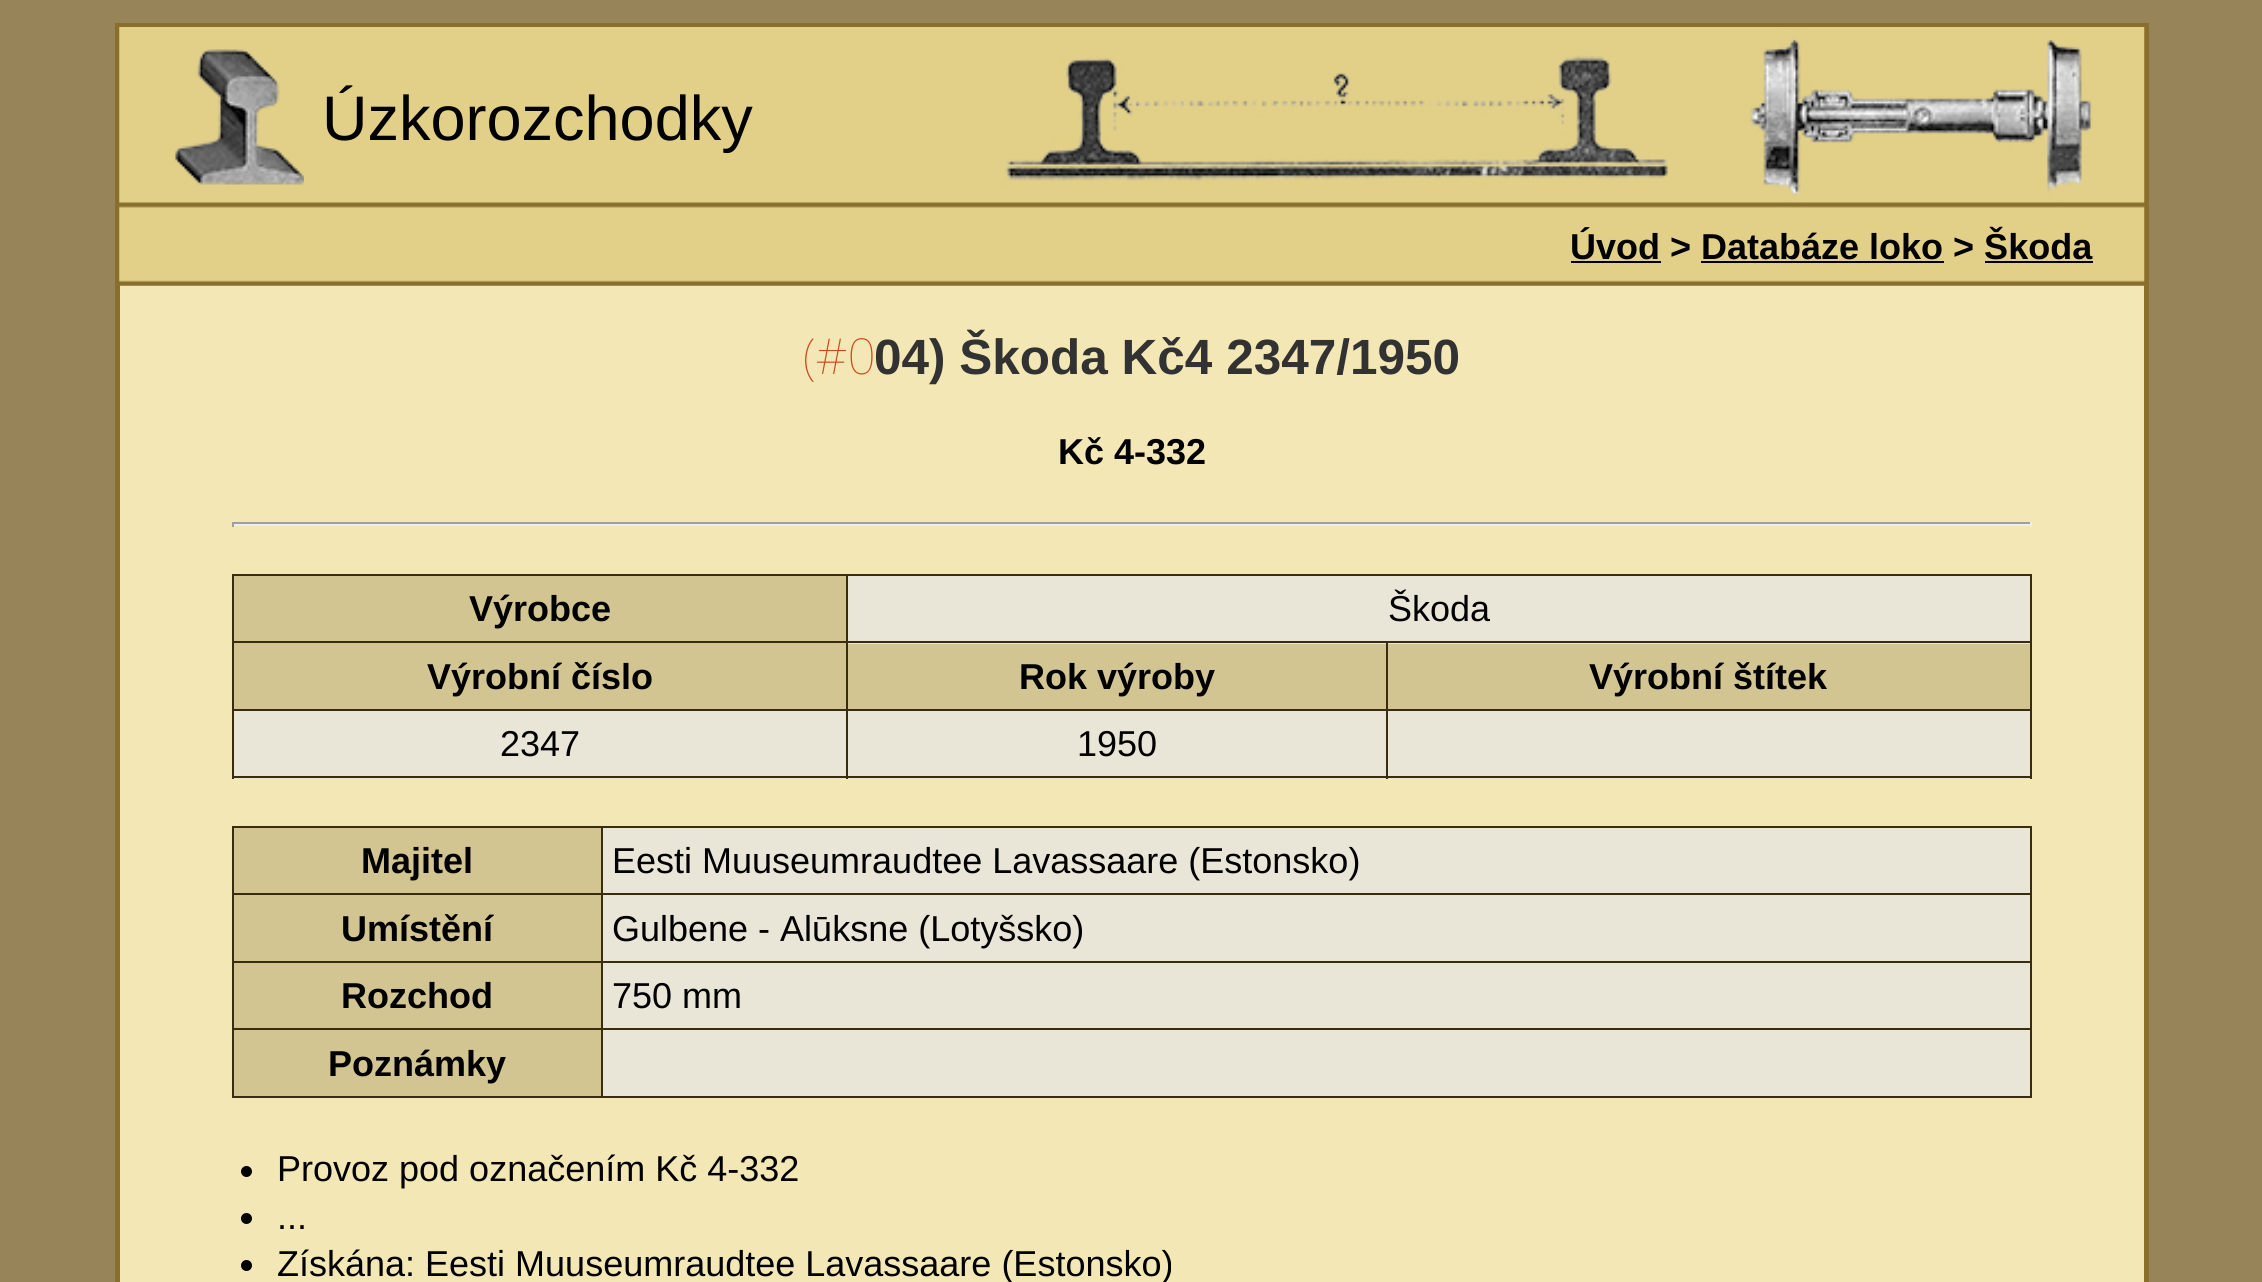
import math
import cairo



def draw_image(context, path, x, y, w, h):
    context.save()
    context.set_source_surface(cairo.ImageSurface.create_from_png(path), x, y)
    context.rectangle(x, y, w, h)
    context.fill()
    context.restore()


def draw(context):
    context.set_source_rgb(151 / 255, 132 / 255, 88 / 255)
    context.paint()
    context.set_source_rgb(243 / 255, 231 / 255, 182 / 255)
    context.rectangle(120, 285, 2024, 997)
    context.fill()
    context.rectangle(117.5, 25.5, 2029, 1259)
    context.set_source_rgb(137 / 255, 110 / 255, 46 / 255)
    context.set_line_width(5)
    context.stroke()
    draw_image(context, "images/1.png", 119, 27, 2026, 259)
    draw_image(context, "images/2.png", 175, 49, 129, 136)
    context.set_source_rgb(0, 0, 0)
    context.rectangle(1571, 261, 90, 2)
    context.fill()
    context.rectangle(1701, 261, 243, 2)
    context.fill()
    context.rectangle(1985, 261, 108, 2)
    context.fill()
    context.set_source_rgb(159 / 255, 159 / 255, 159 / 255)
    context.rectangle(232, 522, 1800, 2)
    context.fill()
    context.set_source_rgb(238 / 255, 238 / 255, 238 / 255)
    context.rectangle(2030, 522, 2, 5)
    context.fill()
    context.rectangle(232, 524, 1800, 2)
    context.fill()
    context.set_source_rgb(159 / 255, 159 / 255, 159 / 255)
    context.rectangle(232, 522, 2, 5)
    context.fill()
    context.set_source_rgb(58 / 255, 45 / 255, 15 / 255)
    context.rectangle(232, 574, 1800, 2)
    context.fill()
    context.rectangle(2030, 574, 2, 205)
    context.fill()
    context.set_source_rgb(234 / 255, 230 / 255, 215 / 255)
    context.rectangle(234, 711, 612, 68)
    context.fill()
    context.rectangle(848, 711, 538, 68)
    context.fill()
    context.rectangle(1388, 711, 642, 68)
    context.fill()
    context.set_source_rgb(58 / 255, 45 / 255, 15 / 255)
    context.rectangle(232, 776, 1800, 2)
    context.fill()
    context.rectangle(232, 574, 2, 205)
    context.fill()
    context.set_source_rgb(210 / 255, 197 / 255, 145 / 255)
    context.rectangle(234, 576, 612, 133)
    context.fill()
    context.set_source_rgb(234 / 255, 230 / 255, 215 / 255)
    context.rectangle(848, 576, 1182, 68)
    context.fill()
    context.set_source_rgb(58 / 255, 45 / 255, 15 / 255)
    context.rectangle(1386, 641, 646, 2)
    context.fill()
    context.rectangle(1386, 709, 646, 2)
    context.fill()
    context.rectangle(1386, 709, 2, 70)
    context.fill()
    context.rectangle(846, 709, 542, 2)
    context.fill()
    context.rectangle(1386, 641, 2, 70)
    context.fill()
    context.rectangle(846, 641, 542, 2)
    context.fill()
    context.rectangle(846, 709, 2, 70)
    context.fill()
    context.rectangle(232, 709, 616, 2)
    context.fill()
    context.rectangle(846, 641, 2, 70)
    context.fill()
    context.rectangle(232, 641, 616, 2)
    context.fill()
    context.rectangle(846, 574, 2, 70)
    context.fill()
    context.set_source_rgb(210 / 255, 197 / 255, 145 / 255)
    context.rectangle(848, 644, 538, 65)
    context.fill()
    context.rectangle(1388, 644, 642, 65)
    context.fill()
    context.set_source_rgb(58 / 255, 45 / 255, 15 / 255)
    context.rectangle(232, 826, 1800, 2)
    context.fill()
    context.rectangle(2030, 826, 2, 272)
    context.fill()
    context.rectangle(232, 1096, 1800, 2)
    context.fill()
    context.rectangle(232, 826, 2, 272)
    context.fill()
    context.set_source_rgb(210 / 255, 197 / 255, 145 / 255)
    context.rectangle(234, 828, 367, 133)
    context.fill()
    context.set_source_rgb(234 / 255, 230 / 255, 215 / 255)
    context.rectangle(603, 828, 1427, 133)
    context.fill()
    context.set_source_rgb(58 / 255, 45 / 255, 15 / 255)
    context.rectangle(601, 893, 1431, 2)
    context.fill()
    context.rectangle(601, 961, 1431, 2)
    context.fill()
    context.set_source_rgb(210 / 255, 197 / 255, 145 / 255)
    context.rectangle(234, 963, 367, 133)
    context.fill()
    context.set_source_rgb(234 / 255, 230 / 255, 215 / 255)
    context.rectangle(603, 963, 1427, 133)
    context.fill()
    context.set_source_rgb(58 / 255, 45 / 255, 15 / 255)
    context.rectangle(601, 1028, 1431, 2)
    context.fill()
    context.rectangle(601, 1028, 2, 70)
    context.fill()
    context.rectangle(232, 1028, 371, 2)
    context.fill()
    context.rectangle(601, 961, 2, 70)
    context.fill()
    context.rectangle(232, 961, 371, 2)
    context.fill()
    context.rectangle(601, 893, 2, 70)
    context.fill()
    context.rectangle(232, 893, 371, 2)
    context.fill()
    context.rectangle(601, 826, 2, 70)
    context.fill()
    context.set_source_rgb(0, 0, 0)
    context.arc(246.5, 1171.5, 5.5, 0, 2 * math.pi)
    context.fill()
    context.arc(246.5, 1218.5, 5.5, 0, 2 * math.pi)
    context.fill()
    context.arc(246.5, 1265.5, 5.5, 0, 2 * math.pi)
    context.fill()
    context.select_font_face("Liberation Sans")
    context.set_font_size(63)
    context.move_to(322, 140)
    context.show_text("Úzkorozchodky")
    context.select_font_face("Liberation Sans", cairo.FontSlant.NORMAL, cairo.FontWeight.BOLD)
    context.set_font_size(36)
    context.move_to(1570, 259)
    context.show_text("Úvod > Databáze loko > Škoda")
    context.select_font_face("Noto Sans Thin")
    context.set_font_size(49.5)
    context.set_source_rgb(202 / 255, 76 / 255, 28 / 255)
    context.move_to(803, 374)
    context.show_text("(#0")
    context.select_font_face("Liberation Sans", cairo.FontSlant.NORMAL, cairo.FontWeight.BOLD)
    context.set_source_rgb(50 / 255, 50 / 255, 50 / 255)
    context.move_to(874, 374)
    context.show_text("04) Škoda Kč4 2347/1950")
    context.set_font_size(36)
    context.set_source_rgb(0, 0, 0)
    context.move_to(1058, 464)
    context.show_text("Kč 4-332")
    context.move_to(469, 621)
    context.show_text("Výrobce")
    context.select_font_face("Liberation Sans")
    context.move_to(1388, 621)
    context.show_text("Škoda")
    context.select_font_face("Liberation Sans", cairo.FontSlant.NORMAL, cairo.FontWeight.BOLD)
    context.move_to(427, 689)
    context.show_text("Výrobní číslo")
    context.move_to(1019, 689)
    context.show_text("Rok výroby")
    context.move_to(1589, 689)
    context.show_text("Výrobní štítek")
    context.select_font_face("Liberation Sans")
    context.move_to(500, 756)
    context.show_text("2347")
    context.move_to(1077, 756)
    context.show_text("1950")
    context.select_font_face("Liberation Sans", cairo.FontSlant.NORMAL, cairo.FontWeight.BOLD)
    context.move_to(361, 873)
    context.show_text("Majitel")
    context.select_font_face("Liberation Sans")
    context.move_to(612, 873)
    context.show_text("Eesti Muuseumraudtee Lavassaare (Estonsko)")
    context.select_font_face("Liberation Sans", cairo.FontSlant.NORMAL, cairo.FontWeight.BOLD)
    context.move_to(341, 941)
    context.show_text("Umístění")
    context.select_font_face("Liberation Sans")
    context.move_to(612, 941)
    context.show_text("Gulbene - Alūksne (Lotyšsko)")
    context.select_font_face("Liberation Sans", cairo.FontSlant.NORMAL, cairo.FontWeight.BOLD)
    context.move_to(341, 1008)
    context.show_text("Rozchod")
    context.select_font_face("Liberation Sans")
    context.move_to(612, 1008)
    context.show_text("750 mm")
    context.select_font_face("Liberation Sans", cairo.FontSlant.NORMAL, cairo.FontWeight.BOLD)
    context.move_to(328, 1076)
    context.show_text("Poznámky")
    context.select_font_face("Liberation Sans")
    context.move_to(277, 1181)
    context.show_text("Provoz pod označením Kč 4-332")
    context.move_to(277, 1229)
    context.show_text("...")
    context.move_to(277, 1276)
    context.show_text("Získána: Eesti Muuseumraudtee Lavassaare (Estonsko)")


surface = cairo.ImageSurface(cairo.Format.RGB24, 2262, 1282)
context = cairo.Context(surface)
options = cairo.FontOptions()
options.set_hint_metrics(cairo.HintMetrics.OFF)
options.set_hint_style(cairo.HintStyle.NONE)
context.set_font_options(options)
context.set_miter_limit(4)
draw(context)
surface.write_to_png("out.png")
